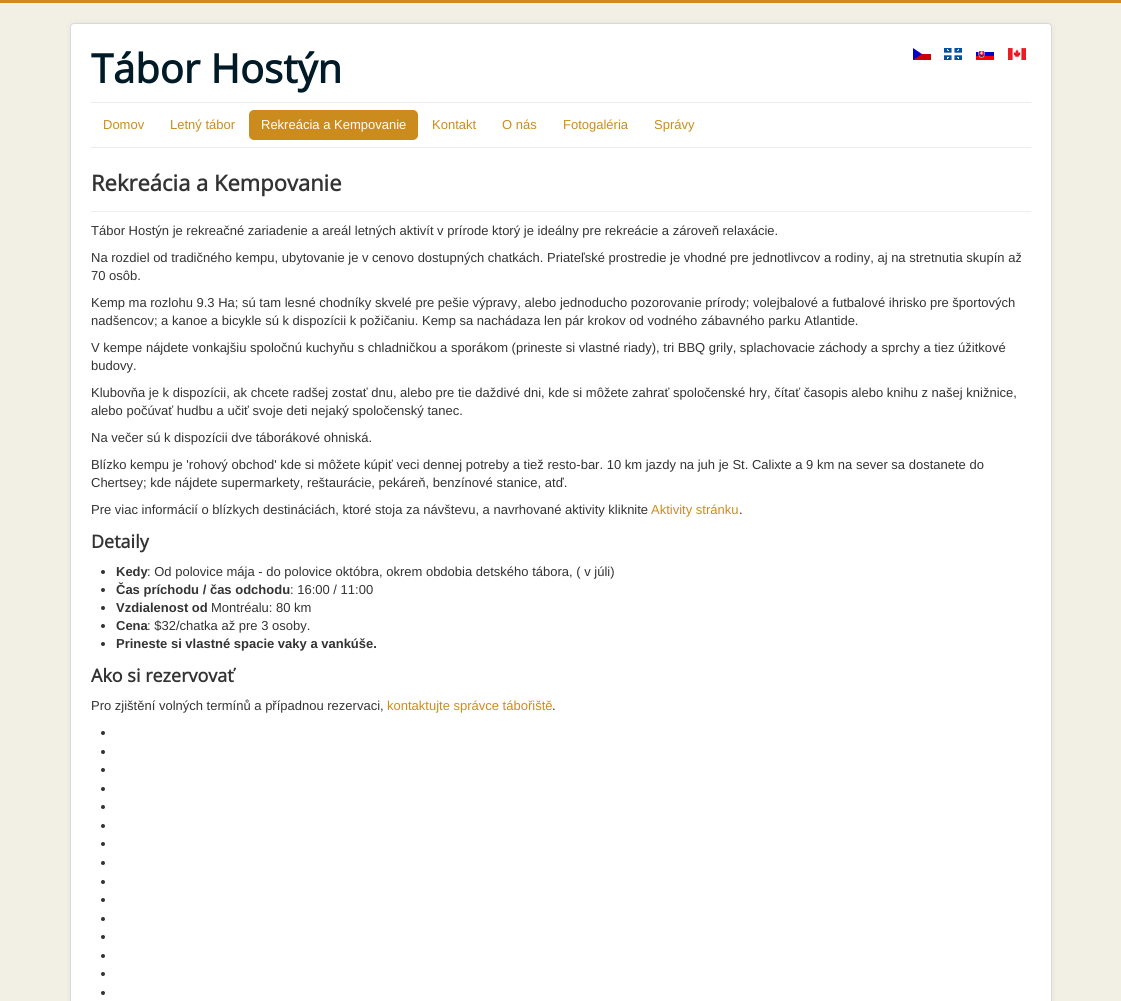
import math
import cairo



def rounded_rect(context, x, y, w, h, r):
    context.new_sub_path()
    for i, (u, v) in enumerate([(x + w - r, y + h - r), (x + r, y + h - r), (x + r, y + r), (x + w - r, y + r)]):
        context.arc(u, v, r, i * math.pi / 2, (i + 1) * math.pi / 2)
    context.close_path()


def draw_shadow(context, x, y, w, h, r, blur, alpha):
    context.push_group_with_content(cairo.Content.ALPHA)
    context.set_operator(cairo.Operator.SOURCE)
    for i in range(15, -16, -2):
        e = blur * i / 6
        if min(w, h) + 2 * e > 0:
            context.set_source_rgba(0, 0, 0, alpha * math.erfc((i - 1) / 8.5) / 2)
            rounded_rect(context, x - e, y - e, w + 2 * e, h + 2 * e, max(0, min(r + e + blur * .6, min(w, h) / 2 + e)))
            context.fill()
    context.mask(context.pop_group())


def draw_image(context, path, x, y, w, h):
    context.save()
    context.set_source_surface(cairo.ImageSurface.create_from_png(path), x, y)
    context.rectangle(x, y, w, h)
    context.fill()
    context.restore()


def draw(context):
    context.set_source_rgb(242 / 255, 239 / 255, 228 / 255)
    context.paint()
    context.set_source_rgb(203 / 255, 140 / 255, 29 / 255)
    context.rectangle(0, 0, 1121, 3)
    context.fill()
    context.set_source_rgb(0, 0, 0)
    draw_shadow(context, 70, 23, 982, 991, 4, 3, 0.05)
    context.set_source_rgb(1, 1, 1)
    rounded_rect(context, 70, 23, 982, 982, 4)
    context.fill()
    rounded_rect(context, 70.5, 23.5, 981, 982, 3.5)
    context.set_source_rgba(0, 0, 0, 0.15)
    context.set_line_width(1)
    context.stroke()
    draw_image(context, "images/1.png", 913, 48, 18, 12)
    draw_image(context, "images/2.png", 944, 48, 18, 12)
    draw_image(context, "images/3.png", 976, 51, 18, 9)
    draw_image(context, "images/4.png", 1008, 48, 18, 12)
    context.set_source_rgb(236 / 255, 236 / 255, 236 / 255)
    context.rectangle(91, 102, 940, 1)
    context.fill()
    context.rectangle(91, 147, 940, 1)
    context.fill()
    context.set_source_rgb(203 / 255, 140 / 255, 29 / 255)
    rounded_rect(context, 249, 110, 169, 30, 5)
    context.fill()
    context.set_source_rgb(238 / 255, 238 / 255, 238 / 255)
    context.rectangle(91, 211, 940, 1)
    context.fill()
    context.set_source_rgb(51 / 255, 51 / 255, 51 / 255)
    context.arc(103, 572, 2, 0, 2 * math.pi)
    context.fill()
    context.arc(103, 590, 2, 0, 2 * math.pi)
    context.fill()
    context.arc(103, 608, 2, 0, 2 * math.pi)
    context.fill()
    context.arc(103, 626, 2, 0, 2 * math.pi)
    context.fill()
    context.arc(103, 644, 2, 0, 2 * math.pi)
    context.fill()
    context.arc(103, 733, 2, 0, 2 * math.pi)
    context.fill()
    context.arc(103, 752, 2, 0, 2 * math.pi)
    context.fill()
    context.arc(103, 770, 2, 0, 2 * math.pi)
    context.fill()
    context.arc(103, 789, 2, 0, 2 * math.pi)
    context.fill()
    context.arc(103, 807, 2, 0, 2 * math.pi)
    context.fill()
    context.arc(103, 826, 2, 0, 2 * math.pi)
    context.fill()
    context.arc(103, 844, 2, 0, 2 * math.pi)
    context.fill()
    context.arc(103, 863, 2, 0, 2 * math.pi)
    context.fill()
    context.arc(103, 882, 2, 0, 2 * math.pi)
    context.fill()
    context.arc(103, 900, 2, 0, 2 * math.pi)
    context.fill()
    context.arc(103, 919, 2, 0, 2 * math.pi)
    context.fill()
    context.arc(103, 937, 2, 0, 2 * math.pi)
    context.fill()
    context.arc(103, 956, 2, 0, 2 * math.pi)
    context.fill()
    context.arc(103, 974, 2, 0, 2 * math.pi)
    context.fill()
    context.arc(103, 993, 2, 0, 2 * math.pi)
    context.fill()
    context.select_font_face("Open Sans", cairo.FontSlant.NORMAL, cairo.FontWeight.BOLD)
    context.set_font_size(40)
    context.set_source_rgb(0, 26 / 255, 39 / 255)
    context.move_to(91, 83)
    context.show_text("Tábor Hostýn")
    context.select_font_face("Liberation Sans")
    context.set_font_size(13)
    context.set_source_rgb(203 / 255, 140 / 255, 29 / 255)
    context.move_to(103, 129)
    context.show_text("Domov")
    context.move_to(170, 129)
    context.show_text("Letný tábor")
    context.set_source_rgb(1, 1, 1)
    context.move_to(261, 129)
    context.show_text("Rekreácia a Kempovanie")
    context.set_source_rgb(203 / 255, 140 / 255, 29 / 255)
    context.move_to(432, 129)
    context.show_text("Kontakt")
    context.move_to(502, 129)
    context.show_text("O nás")
    context.move_to(563, 129)
    context.show_text("Fotogaléria")
    context.move_to(654, 129)
    context.show_text("Správy")
    context.select_font_face("Open Sans", cairo.FontSlant.NORMAL, cairo.FontWeight.BOLD)
    context.set_font_size(22)
    context.set_source_rgb(51 / 255, 51 / 255, 51 / 255)
    context.move_to(91, 191)
    context.show_text("Rekreácia a Kempovanie")
    context.select_font_face("Liberation Sans")
    context.set_font_size(13)
    context.move_to(91, 235)
    context.show_text("Tábor Hostýn je rekreačné zariadenie a areál letných aktivít v prírode ktorý je ideálny pre rekreácie a zároveň relaxácie.")
    context.move_to(91, 262)
    context.show_text("Na rozdiel od tradičného kempu, ubytovanie je v cenovo dostupných chatkách. Priateľské prostredie je vhodné pre jednotlivcov a rodiny, aj na stretnutia skupín až")
    context.move_to(91, 280)
    context.show_text("70 osôb.")
    context.move_to(91, 307)
    context.show_text("Kemp ma rozlohu 9.3 Ha; sú tam lesné chodníky skvelé pre pešie výpravy, alebo jednoducho pozorovanie prírody; volejbalové a futbalové ihrisko pre športových")
    context.move_to(91, 325)
    context.show_text("nadšencov; a kanoe a bicykle sú k dispozícii k požičaniu. Kemp sa nachádaza len pár krokov od vodného zábavného parku Atlantide.")
    context.move_to(91, 352)
    context.show_text("V kempe nájdete vonkajšiu spoločnú kuchyňu s chladničkou a sporákom (prineste si vlastné riady), tri BBQ grily, splachovacie záchody a sprchy a tiez úžitkové")
    context.move_to(91, 370)
    context.show_text("budovy.")
    context.move_to(91, 397)
    context.show_text("Klubovňa je k dispozícii, ak chcete radšej zostať dnu, alebo pre tie daždivé dni, kde si môžete zahrať spoločenské hry, čítať časopis alebo knihu z našej knižnice,")
    context.move_to(91, 415)
    context.show_text("alebo počúvať hudbu a učiť svoje deti nejaký spoločenský tanec.")
    context.move_to(91, 442)
    context.show_text("Na večer sú k dispozícii dve táborákové ohniská.")
    context.move_to(91, 469)
    context.show_text("Blízko kempu je 'rohový obchod' kde si môžete kúpiť veci dennej potreby a tiež resto-bar. 10 km jazdy na juh je St. Calixte a 9 km na sever sa dostanete do")
    context.move_to(91, 487)
    context.show_text("Chertsey; kde nájdete supermarkety, reštaurácie, pekáreň, benzínové stanice, atď.")
    context.move_to(91, 514)
    context.show_text("Pre viac informácií o blízkych destináciách, ktoré stoja za návštevu, a navrhované aktivity kliknite")
    context.set_source_rgb(203 / 255, 140 / 255, 29 / 255)
    context.move_to(651, 514)
    context.show_text("Aktivity stránku")
    context.set_source_rgb(51 / 255, 51 / 255, 51 / 255)
    context.move_to(739, 514)
    context.show_text(".")
    context.select_font_face("Open Sans", cairo.FontSlant.NORMAL, cairo.FontWeight.BOLD)
    context.set_font_size(18)
    context.move_to(91, 548)
    context.show_text("Detaily")
    context.select_font_face("Liberation Sans", cairo.FontSlant.NORMAL, cairo.FontWeight.BOLD)
    context.set_font_size(13)
    context.move_to(116, 576)
    context.show_text("Kedy")
    context.select_font_face("Liberation Sans")
    context.move_to(147, 576)
    context.show_text(": Od polovice mája - do polovice októbra, okrem obdobia detského tábora, ( v júli)")
    context.select_font_face("Liberation Sans", cairo.FontSlant.NORMAL, cairo.FontWeight.BOLD)
    context.move_to(116, 594)
    context.show_text("Čas príchodu / čas odchodu")
    context.select_font_face("Liberation Sans")
    context.move_to(290, 594)
    context.show_text(": 16:00 / 11:00")
    context.select_font_face("Liberation Sans", cairo.FontSlant.NORMAL, cairo.FontWeight.BOLD)
    context.move_to(116, 612)
    context.show_text("Vzdialenost od")
    context.select_font_face("Liberation Sans")
    context.move_to(211, 612)
    context.show_text("Montréalu: 80 km")
    context.select_font_face("Liberation Sans", cairo.FontSlant.NORMAL, cairo.FontWeight.BOLD)
    context.move_to(116, 630)
    context.show_text("Cena")
    context.select_font_face("Liberation Sans")
    context.move_to(147, 630)
    context.show_text(": $32/chatka až pre 3 osoby.")
    context.select_font_face("Liberation Sans", cairo.FontSlant.NORMAL, cairo.FontWeight.BOLD)
    context.move_to(116, 648)
    context.show_text("Prineste si vlastné spacie vaky a vankúše.")
    context.select_font_face("Open Sans", cairo.FontSlant.NORMAL, cairo.FontWeight.BOLD)
    context.set_font_size(18)
    context.move_to(91, 682)
    context.show_text("Ako si rezervovať")
    context.select_font_face("Liberation Sans")
    context.set_font_size(13)
    context.move_to(91, 710)
    context.show_text("Pro zjištění volných termínů a případnou rezervaci,")
    context.set_source_rgb(203 / 255, 140 / 255, 29 / 255)
    context.move_to(387, 710)
    context.show_text("kontaktujte správce tábořiště")
    context.set_source_rgb(51 / 255, 51 / 255, 51 / 255)
    context.move_to(552, 710)
    context.show_text(".")


surface = cairo.ImageSurface(cairo.Format.RGB24, 1121, 1001)
context = cairo.Context(surface)
options = cairo.FontOptions()
options.set_hint_metrics(cairo.HintMetrics.OFF)
options.set_hint_style(cairo.HintStyle.NONE)
context.set_font_options(options)
context.set_miter_limit(4)
draw(context)
surface.write_to_png("out.png")
